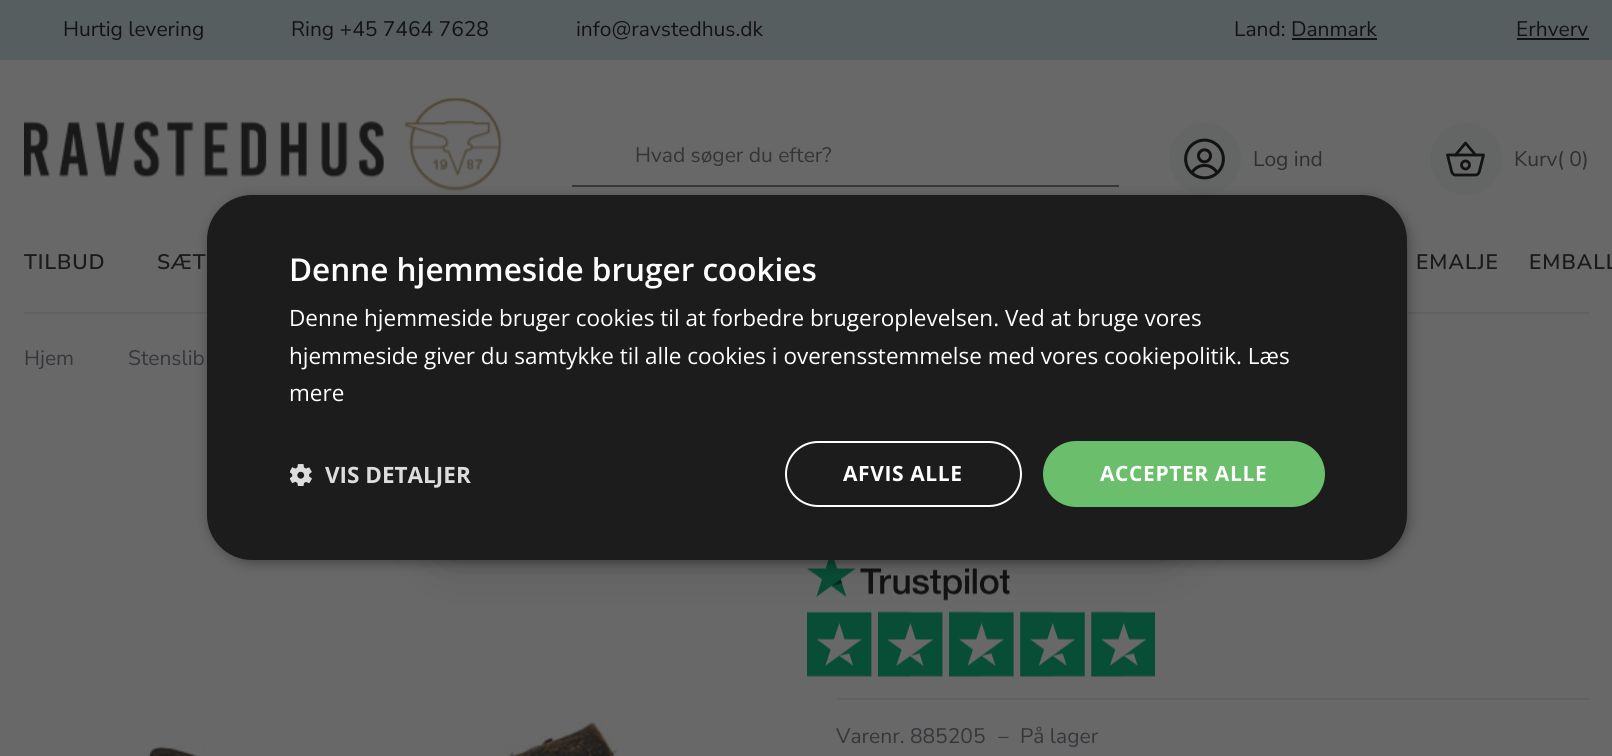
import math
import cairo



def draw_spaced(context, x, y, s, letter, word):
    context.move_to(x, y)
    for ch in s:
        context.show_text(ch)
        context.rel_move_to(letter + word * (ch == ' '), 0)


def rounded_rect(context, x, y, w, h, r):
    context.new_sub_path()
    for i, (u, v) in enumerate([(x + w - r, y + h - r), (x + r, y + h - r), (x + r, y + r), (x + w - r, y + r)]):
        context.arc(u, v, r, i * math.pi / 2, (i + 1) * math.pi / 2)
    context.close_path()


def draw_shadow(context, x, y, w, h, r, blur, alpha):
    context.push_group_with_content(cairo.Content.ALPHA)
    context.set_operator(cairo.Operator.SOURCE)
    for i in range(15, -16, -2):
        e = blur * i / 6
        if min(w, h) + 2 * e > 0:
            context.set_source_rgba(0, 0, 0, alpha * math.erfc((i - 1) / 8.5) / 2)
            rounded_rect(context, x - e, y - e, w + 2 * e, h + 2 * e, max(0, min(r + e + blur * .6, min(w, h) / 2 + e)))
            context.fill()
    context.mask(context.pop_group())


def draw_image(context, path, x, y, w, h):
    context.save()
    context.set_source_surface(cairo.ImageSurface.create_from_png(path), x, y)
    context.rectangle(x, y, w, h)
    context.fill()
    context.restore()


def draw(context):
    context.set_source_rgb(104 / 255, 104 / 255, 104 / 255)
    context.paint()
    draw_image(context, "images/1.png", 0, 0, 1612, 60)
    context.set_source_rgb(19 / 255, 19 / 255, 21 / 255)
    context.rectangle(1292, 38, 85, 2)
    context.fill()
    context.rectangle(1517, 38, 72, 2)
    context.fill()
    draw_image(context, "images/2.png", 24, 98, 478, 93)
    context.set_source_rgb(53 / 255, 55 / 255, 59 / 255)
    context.rectangle(572, 185, 547, 2)
    context.fill()
    context.set_source_rgb(100 / 255, 102 / 255, 102 / 255)
    context.arc(1205, 159, 36, 0, 2 * math.pi)
    context.fill()
    draw_image(context, "images/3.png", 1184, 138, 41, 42)
    context.arc(1466, 159, 36, 0, 2 * math.pi)
    context.fill()
    draw_image(context, "images/4.png", 1446, 141, 39, 36)
    context.set_source_rgb(97 / 255, 97 / 255, 97 / 255)
    context.rectangle(24, 312, 1565, 2)
    context.fill()
    draw_image(context, "images/5.png", 146, 720, 472, 36)
    context.rectangle(837, 698, 752, 2)
    context.fill()
    draw_image(context, "images/6.png", 807, 560, 348, 117)
    context.set_source_rgb(9 / 255, 9 / 255, 9 / 255)
    draw_shadow(context, 447, 330, 720, 209, 0, 30, 0.5)
    context.set_source_rgb(0, 0, 0)
    draw_shadow(context, 209, 198, 1200, 365, 45, 6, 0.35)
    context.set_source_rgb(28 / 255, 28 / 255, 28 / 255)
    rounded_rect(context, 207, 195, 1200, 365, 45)
    context.fill()
    draw_image(context, "images/7.png", 290, 464, 22, 22)
    rounded_rect(context, 786, 442, 235, 64, 32)
    context.set_source_rgb(1, 1, 1)
    context.stroke()
    context.set_source_rgb(107 / 255, 190 / 255, 107 / 255)
    rounded_rect(context, 1043, 441, 282, 66, 33)
    context.fill()
    context.select_font_face("Nunito Sans")
    context.set_font_size(21)
    context.set_source_rgb(19 / 255, 19 / 255, 21 / 255)
    context.move_to(63, 36)
    context.show_text("Hurtig levering")
    context.move_to(291, 36)
    context.show_text("Ring +45 7464 7628")
    context.move_to(576, 36)
    context.show_text("info@ravstedhus.dk")
    context.move_to(1234, 36)
    context.show_text("Land: Danmark")
    context.move_to(1516, 36)
    context.show_text("Erhverv")
    context.set_source_rgb(53 / 255, 53 / 255, 53 / 255)
    context.move_to(635, 162)
    context.show_text("Hvad søger du efter?")
    context.set_source_rgb(47 / 255, 47 / 255, 47 / 255)
    context.move_to(1253, 166)
    context.show_text("Log ind")
    context.move_to(1514, 166)
    context.show_text("Kurv( 0)")
    context.select_font_face("Nunito Sans SemiBold")
    context.set_source_rgb(26 / 255, 26 / 255, 26 / 255)
    draw_spaced(context, 24, 269, "TILBUD", 1, 0)
    draw_spaced(context, 157, 269, "SÆT", 1, 0)
    draw_spaced(context, 1416, 269, "EMALJE", 1, 0)
    draw_spaced(context, 1529, 269, "EMBALL", 1, 0)
    context.select_font_face("Nunito Sans")
    context.set_source_rgb(53 / 255, 55 / 255, 59 / 255)
    context.move_to(24, 365)
    context.show_text("Hjem")
    context.move_to(128, 365)
    context.show_text("Stenslib")
    context.move_to(836, 743)
    context.show_text("Varenr. 885205")
    context.move_to(998, 743)
    context.show_text("–")
    context.move_to(1020, 743)
    context.show_text("På lager")
    context.select_font_face("Open Sans SemiBold")
    context.set_font_size(31.5)
    context.set_source_rgb(1, 1, 1)
    context.move_to(289, 281)
    context.show_text("Denne hjemmeside bruger cookies")
    context.select_font_face("Open Sans")
    context.set_font_size(22.5)
    context.move_to(289, 326)
    context.show_text("Denne hjemmeside bruger cookies til at forbedre brugeroplevelsen. Ved at bruge vores")
    context.move_to(289, 364)
    context.show_text("hjemmeside giver du samtykke til alle cookies i overensstemmelse med vores cookiepolitik. Læs")
    context.move_to(289, 401)
    context.show_text("mere")
    context.select_font_face("Open Sans", cairo.FontSlant.NORMAL, cairo.FontWeight.BOLD)
    context.set_source_rgb(221 / 255, 221 / 255, 221 / 255)
    context.move_to(325, 483)
    context.show_text("VIS DETALJER")
    context.set_font_size(21)
    context.set_source_rgb(1, 1, 1)
    draw_spaced(context, 843, 481, "AFVIS ALLE", 0.6, 0)
    draw_spaced(context, 1100, 481, "ACCEPTER ALLE", 0.6, 0)


surface = cairo.ImageSurface(cairo.Format.RGB24, 1612, 756)
context = cairo.Context(surface)
options = cairo.FontOptions()
options.set_hint_metrics(cairo.HintMetrics.OFF)
options.set_hint_style(cairo.HintStyle.NONE)
context.set_font_options(options)
context.set_miter_limit(4)
draw(context)
surface.write_to_png("out.png")
